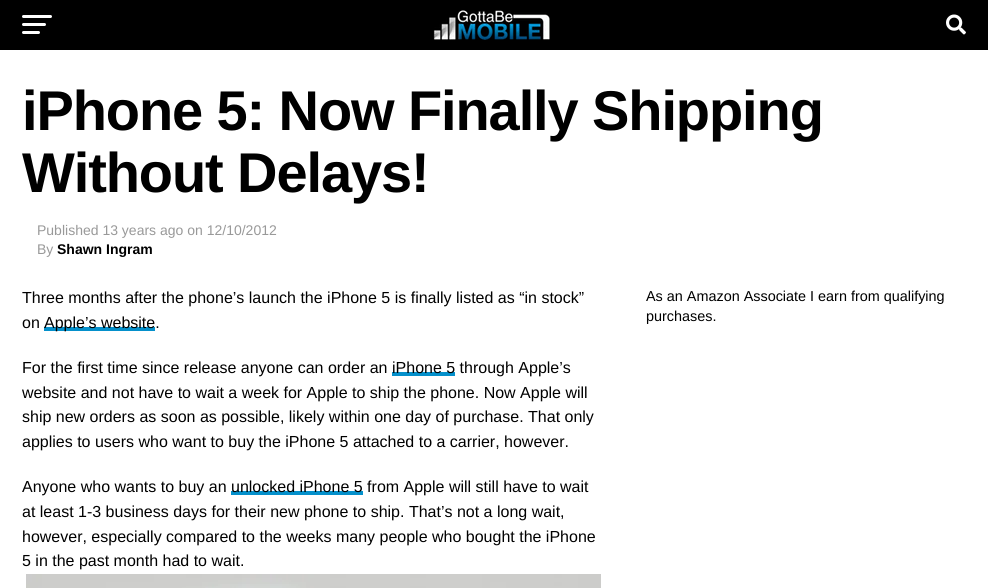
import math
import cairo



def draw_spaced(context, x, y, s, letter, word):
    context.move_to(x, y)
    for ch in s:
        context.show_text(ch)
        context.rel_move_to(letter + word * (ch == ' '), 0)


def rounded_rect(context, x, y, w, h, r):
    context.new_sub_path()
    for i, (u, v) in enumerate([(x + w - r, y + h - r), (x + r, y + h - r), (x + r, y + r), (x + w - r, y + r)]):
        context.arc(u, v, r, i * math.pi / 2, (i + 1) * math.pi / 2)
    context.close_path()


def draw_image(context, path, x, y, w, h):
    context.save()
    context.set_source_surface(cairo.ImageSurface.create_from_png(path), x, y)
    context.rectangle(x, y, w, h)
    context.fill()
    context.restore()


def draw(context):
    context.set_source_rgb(1, 1, 1)
    context.paint()
    context.set_source_rgb(0, 0, 0)
    context.rectangle(0, 0, 988, 50)
    context.fill()
    context.set_source_rgb(1, 1, 1)
    rounded_rect(context, 22, 15, 30, 3, 1.5)
    context.fill()
    rounded_rect(context, 22, 23, 24, 3, 1.5)
    context.fill()
    rounded_rect(context, 22, 31, 18, 3, 1.5)
    context.fill()
    draw_image(context, "images/1.png", 433, 10, 117, 30)
    draw_image(context, "images/2.png", 946, 14, 20, 21)
    context.set_source_rgb(4 / 255, 144 / 255, 203 / 255)
    context.rectangle(44, 327, 111, 4)
    context.fill()
    context.rectangle(392, 372, 63, 4)
    context.fill()
    context.rectangle(231, 491, 132, 4)
    context.fill()
    draw_image(context, "images/3.png", 26, 574, 575, 14)
    context.select_font_face("Liberation Sans", cairo.FontSlant.NORMAL, cairo.FontWeight.BOLD)
    context.set_font_size(56)
    context.set_source_rgb(0, 0, 0)
    draw_spaced(context, 22, 130, "iPhone 5: Now Finally Shipping", -1.1, 0)
    draw_spaced(context, 22, 192, "Without Delays!", -1.1, 0)
    context.select_font_face("Liberation Sans")
    context.set_font_size(14)
    context.set_source_rgb(153 / 255, 153 / 255, 153 / 255)
    context.move_to(37, 235)
    context.show_text("Published 13 years ago on 12/10/2012")
    context.move_to(37, 254)
    context.show_text("By")
    context.select_font_face("Liberation Sans", cairo.FontSlant.NORMAL, cairo.FontWeight.BOLD)
    context.set_source_rgb(0, 0, 0)
    context.move_to(57, 254)
    context.show_text("Shawn Ingram")
    context.select_font_face("Liberation Sans")
    context.set_font_size(16)
    context.move_to(22, 303)
    context.show_text("Three months after the phone’s launch the iPhone 5 is finally listed as “in stock”")
    context.move_to(22, 328)
    context.show_text("on")
    context.move_to(44, 328)
    context.show_text("Apple’s website.")
    context.move_to(22, 373)
    context.show_text("For the first time since release anyone can order an")
    context.move_to(392, 373)
    context.show_text("iPhone 5 through Apple’s")
    context.move_to(22, 398)
    context.show_text("website and not have to wait a week for Apple to ship the phone. Now Apple will")
    context.move_to(22, 422)
    context.show_text("ship new orders as soon as possible, likely within one day of purchase. That only")
    context.move_to(22, 447)
    context.show_text("applies to users who want to buy the iPhone 5 attached to a carrier, however.")
    context.move_to(22, 492)
    context.show_text("Anyone who wants to buy an")
    context.move_to(231, 492)
    context.show_text("unlocked iPhone 5 from Apple will still have to wait")
    context.move_to(22, 517)
    context.show_text("at least 1-3 business days for their new phone to ship. That’s not a long wait,")
    context.move_to(22, 542)
    context.show_text("however, especially compared to the weeks many people who bought the iPhone")
    context.move_to(22, 566)
    context.show_text("5 in the past month had to wait.")
    context.set_font_size(14.4)
    context.move_to(646, 301)
    context.show_text("As an Amazon Associate I earn from qualifying")
    context.move_to(646, 321)
    context.show_text("purchases.")


surface = cairo.ImageSurface(cairo.Format.RGB24, 988, 588)
context = cairo.Context(surface)
options = cairo.FontOptions()
options.set_hint_metrics(cairo.HintMetrics.OFF)
options.set_hint_style(cairo.HintStyle.NONE)
context.set_font_options(options)
context.set_miter_limit(4)
draw(context)
surface.write_to_png("out.png")
